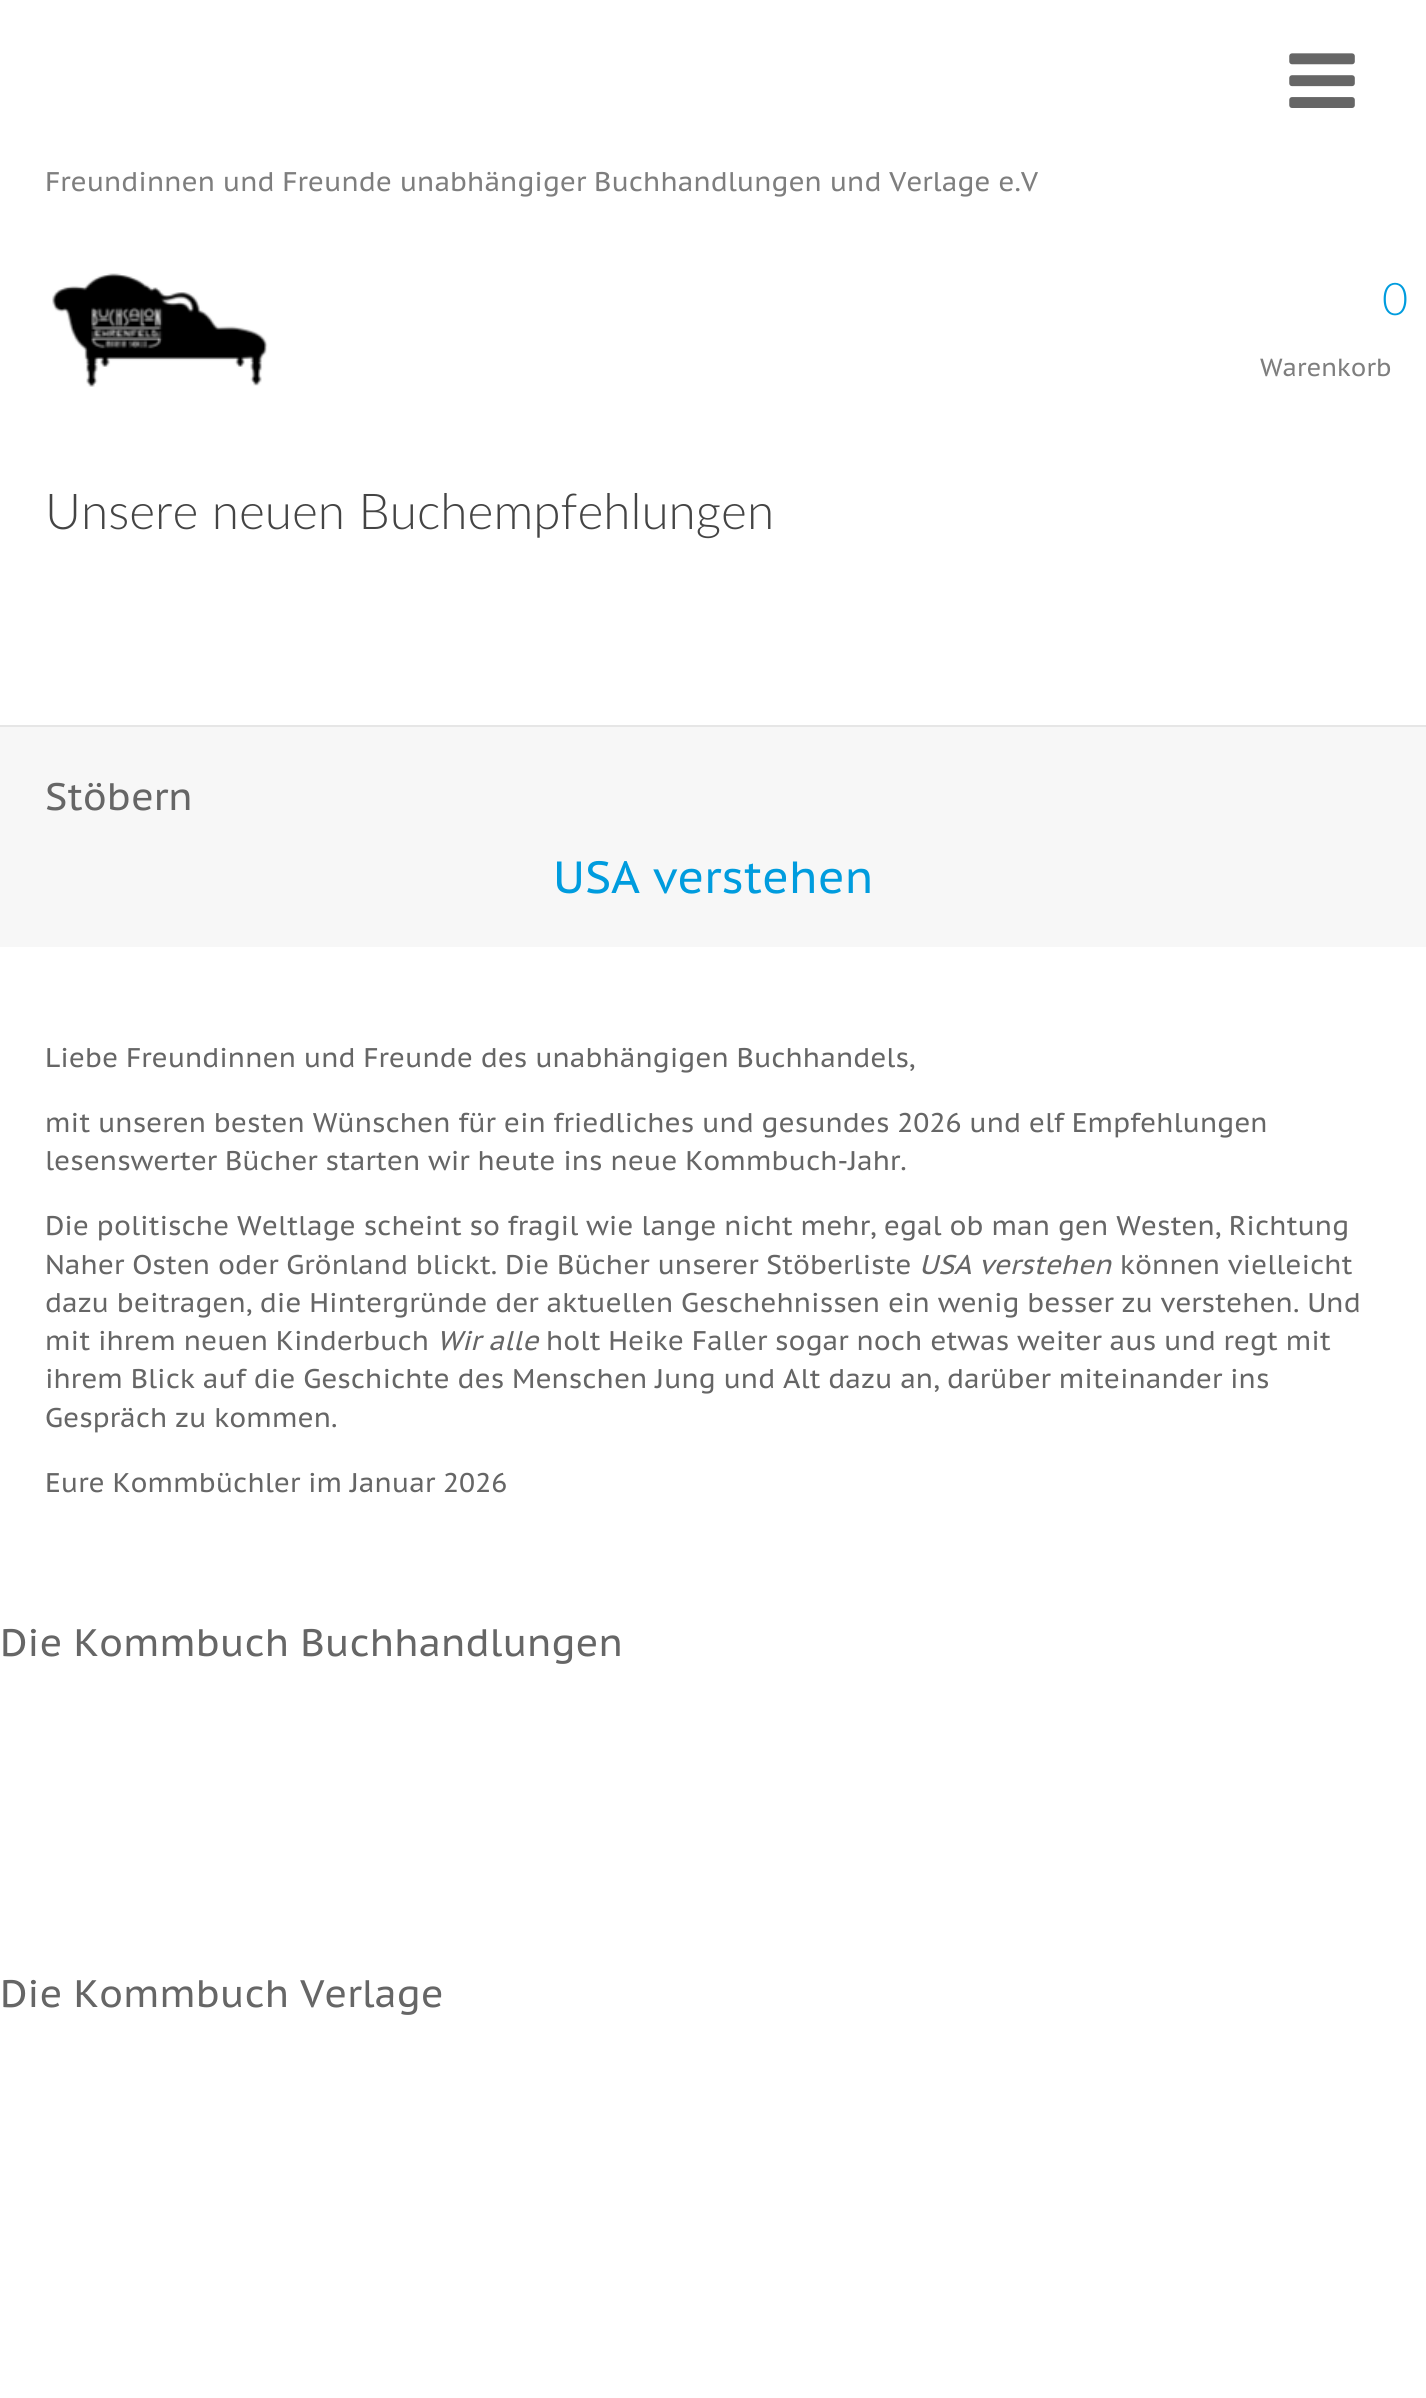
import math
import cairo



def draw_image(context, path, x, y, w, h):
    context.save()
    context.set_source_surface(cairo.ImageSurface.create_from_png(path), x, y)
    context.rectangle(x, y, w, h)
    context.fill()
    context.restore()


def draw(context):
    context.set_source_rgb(1, 1, 1)
    context.paint()
    draw_image(context, "images/1.png", 1289, 53, 66, 55)
    draw_image(context, "images/2.png", 52, 273, 216, 114)
    context.set_source_rgb(247 / 255, 247 / 255, 247 / 255)
    context.rectangle(0, 727, 1426, 220)
    context.fill()
    context.set_source_rgb(230 / 255, 230 / 255, 230 / 255)
    context.rectangle(0, 725, 1426, 2)
    context.fill()
    context.select_font_face("PT Sans Caption")
    context.set_font_size(27)
    context.set_source_rgb(126 / 255, 126 / 255, 126 / 255)
    context.move_to(45, 191)
    context.show_text("Freundinnen und Freunde unabhängiger Buchhandlungen und Verlage e.V")
    context.select_font_face("Lato Light")
    context.set_font_size(45)
    context.set_source_rgb(0, 156 / 255, 222 / 255)
    context.move_to(1382, 315)
    context.show_text("0")
    context.select_font_face("PT Sans Caption")
    context.set_font_size(24.75)
    context.set_source_rgb(126 / 255, 126 / 255, 126 / 255)
    context.move_to(1260, 376)
    context.show_text("Warenkorb")
    context.select_font_face("Lato Light")
    context.set_font_size(49.5)
    context.set_source_rgb(68 / 255, 68 / 255, 68 / 255)
    context.move_to(45, 529)
    context.show_text("Unsere neuen Buchempfehlungen")
    context.select_font_face("PT Sans Caption")
    context.set_font_size(38.25)
    context.set_source_rgb(102 / 255, 102 / 255, 102 / 255)
    context.move_to(45, 810)
    context.show_text("Stöbern")
    context.set_font_size(45)
    context.set_source_rgb(0, 156 / 255, 222 / 255)
    context.move_to(553, 893)
    context.show_text("USA verstehen")
    context.set_font_size(27)
    context.set_source_rgb(102 / 255, 102 / 255, 102 / 255)
    context.move_to(45, 1067)
    context.show_text("Liebe Freundinnen und Freunde des unabhängigen Buchhandels,")
    context.move_to(45, 1132)
    context.show_text("mit unseren besten Wünschen für ein friedliches und gesundes 2026 und elf Empfehlungen")
    context.move_to(45, 1170)
    context.show_text("lesenswerter Bücher starten wir heute ins neue Kommbuch-Jahr.")
    context.move_to(45, 1235)
    context.show_text("Die politische Weltlage scheint so fragil wie lange nicht mehr, egal ob man gen Westen, Richtung")
    context.move_to(45, 1274)
    context.show_text("Naher Osten oder Grönland blickt. Die Bücher unserer Stöberliste")
    context.select_font_face("PT Sans Caption", cairo.FontSlant.ITALIC)
    context.move_to(919, 1274)
    context.show_text("USA verstehen")
    context.select_font_face("PT Sans Caption")
    context.move_to(1120, 1274)
    context.show_text("können vielleicht")
    context.move_to(45, 1312)
    context.show_text("dazu beitragen, die Hintergründe der aktuellen Geschehnissen ein wenig besser zu verstehen. Und")
    context.move_to(45, 1350)
    context.show_text("mit ihrem neuen Kinderbuch")
    context.select_font_face("PT Sans Caption", cairo.FontSlant.ITALIC)
    context.move_to(437, 1350)
    context.show_text("Wir alle")
    context.select_font_face("PT Sans Caption")
    context.move_to(546, 1350)
    context.show_text("holt Heike Faller sogar noch etwas weiter aus und regt mit")
    context.move_to(45, 1388)
    context.show_text("ihrem Blick auf die Geschichte des Menschen Jung und Alt dazu an, darüber miteinander ins")
    context.move_to(45, 1427)
    context.show_text("Gespräch zu kommen.")
    context.move_to(45, 1492)
    context.show_text("Eure Kommbüchler im Januar 2026")
    context.set_font_size(38.25)
    context.move_to(0, 1656)
    context.show_text("Die Kommbuch Buchhandlungen")
    context.move_to(0, 2007)
    context.show_text("Die Kommbuch Verlage")


surface = cairo.ImageSurface(cairo.Format.RGB24, 1426, 2398)
context = cairo.Context(surface)
options = cairo.FontOptions()
options.set_hint_metrics(cairo.HintMetrics.OFF)
options.set_hint_style(cairo.HintStyle.NONE)
context.set_font_options(options)
context.set_miter_limit(4)
draw(context)
surface.write_to_png("out.png")
